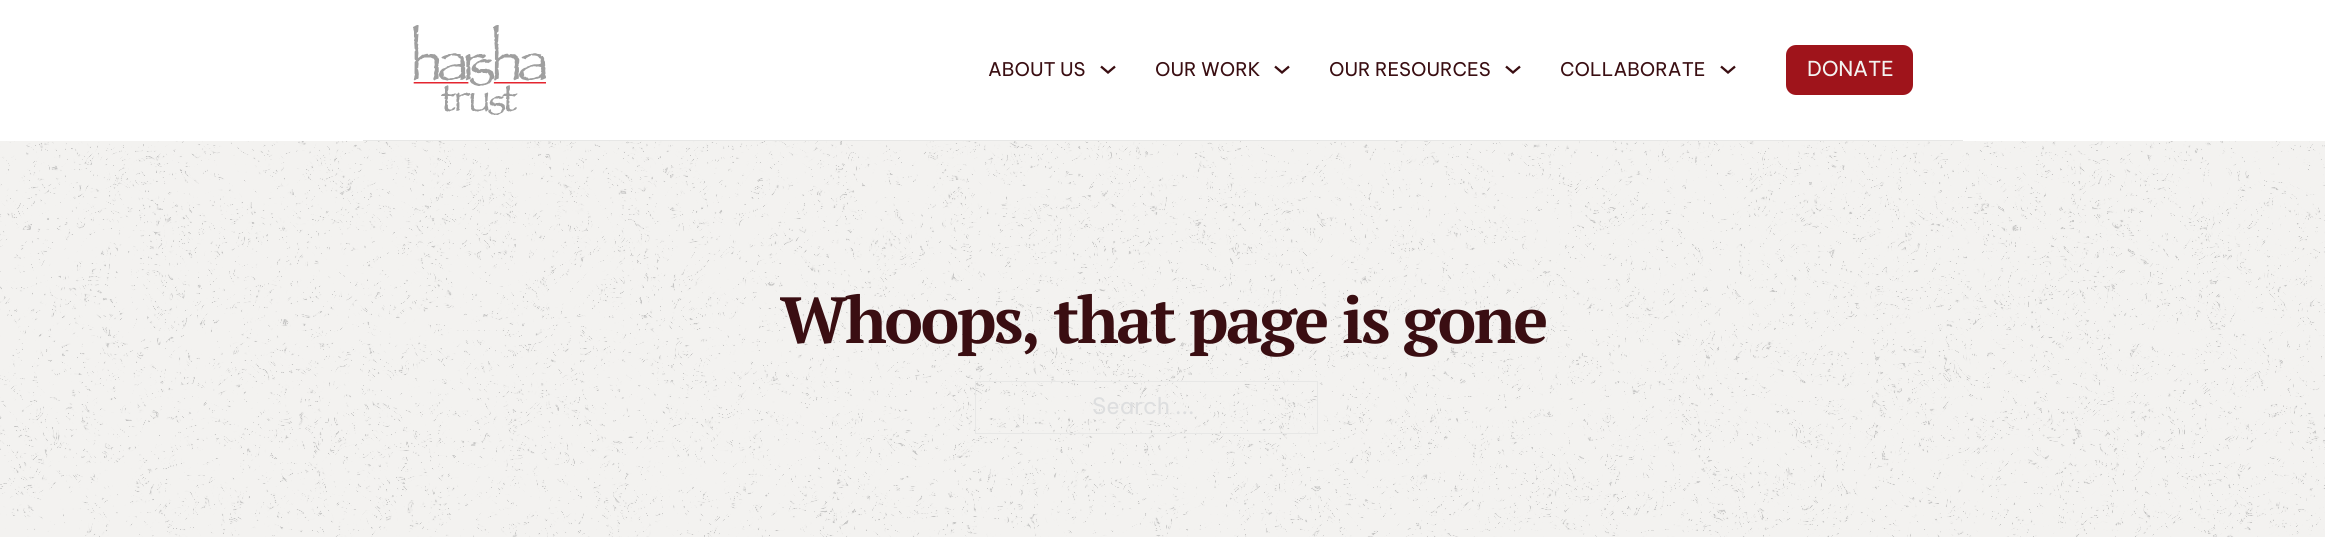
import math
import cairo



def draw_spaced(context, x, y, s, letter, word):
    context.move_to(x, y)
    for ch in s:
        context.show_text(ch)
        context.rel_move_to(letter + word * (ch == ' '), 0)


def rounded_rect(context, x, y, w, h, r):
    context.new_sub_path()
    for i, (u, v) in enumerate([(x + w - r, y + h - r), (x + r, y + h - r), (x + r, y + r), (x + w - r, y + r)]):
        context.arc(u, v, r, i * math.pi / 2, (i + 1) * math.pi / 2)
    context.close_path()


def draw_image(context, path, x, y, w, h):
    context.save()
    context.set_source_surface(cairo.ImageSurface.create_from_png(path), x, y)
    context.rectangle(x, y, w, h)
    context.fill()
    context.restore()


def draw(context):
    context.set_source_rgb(243 / 255, 242 / 255, 240 / 255)
    context.paint()
    draw_image(context, "images/1.png", 0, 141, 2325, 396)
    context.set_source_rgb(1, 1, 1)
    context.rectangle(0, 0, 2325, 141)
    context.fill()
    context.set_source_rgb(231 / 255, 231 / 255, 230 / 255)
    context.rectangle(363, 140, 1600, 1)
    context.fill()
    draw_image(context, "images/2.png", 413, 25, 133, 90)
    context.new_path()
    context.move_to(1101, 66.5)
    context.line_to(1108, 72.5)
    context.line_to(1115, 66.5)
    context.set_source_rgb(58 / 255, 14 / 255, 18 / 255)
    context.set_line_width(2.3)
    context.stroke()
    context.new_path()
    context.move_to(1275, 66.5)
    context.line_to(1282, 72.5)
    context.line_to(1289, 66.5)
    context.stroke()
    context.new_path()
    context.move_to(1506, 66.5)
    context.line_to(1513, 72.5)
    context.line_to(1520, 66.5)
    context.stroke()
    context.new_path()
    context.move_to(1721, 66.5)
    context.line_to(1728, 72.5)
    context.line_to(1735, 66.5)
    context.stroke()
    context.set_source_rgb(159 / 255, 20 / 255, 27 / 255)
    rounded_rect(context, 1786, 45, 127, 50, 10)
    context.fill()
    context.rectangle(975.5, 381.5, 342, 52)
    context.set_source_rgb(231 / 255, 231 / 255, 230 / 255)
    context.set_line_width(1)
    context.stroke()
    context.select_font_face("Be Vietnam Pro")
    context.set_font_size(18.75)
    context.set_source_rgb(58 / 255, 14 / 255, 18 / 255)
    context.move_to(988, 76)
    context.show_text("ABOUT US")
    context.move_to(1155, 76)
    context.show_text("OUR WORK")
    context.move_to(1329, 76)
    context.show_text("OUR RESOURCES")
    context.move_to(1560, 76)
    context.show_text("COLLABORATE")
    context.set_font_size(20.5)
    context.set_source_rgb(243 / 255, 242 / 255, 240 / 255)
    draw_spaced(context, 1807, 76, "DONATE", -0.25, 0)
    context.select_font_face("PT Serif", cairo.FontSlant.NORMAL, cairo.FontWeight.BOLD)
    context.set_font_size(65.25)
    context.set_source_rgb(58 / 255, 14 / 255, 18 / 255)
    draw_spaced(context, 780, 343, "Whoops, that page is gone", -2.5, 0)
    context.select_font_face("Be Vietnam Pro")
    context.set_font_size(22.5)
    context.set_source_rgb(221 / 255, 222 / 255, 223 / 255)
    context.move_to(1092, 414)
    context.show_text("Search ...")


surface = cairo.ImageSurface(cairo.Format.RGB24, 2325, 537)
context = cairo.Context(surface)
options = cairo.FontOptions()
options.set_hint_metrics(cairo.HintMetrics.OFF)
options.set_hint_style(cairo.HintStyle.NONE)
context.set_font_options(options)
context.set_miter_limit(4)
draw(context)
surface.write_to_png("out.png")
